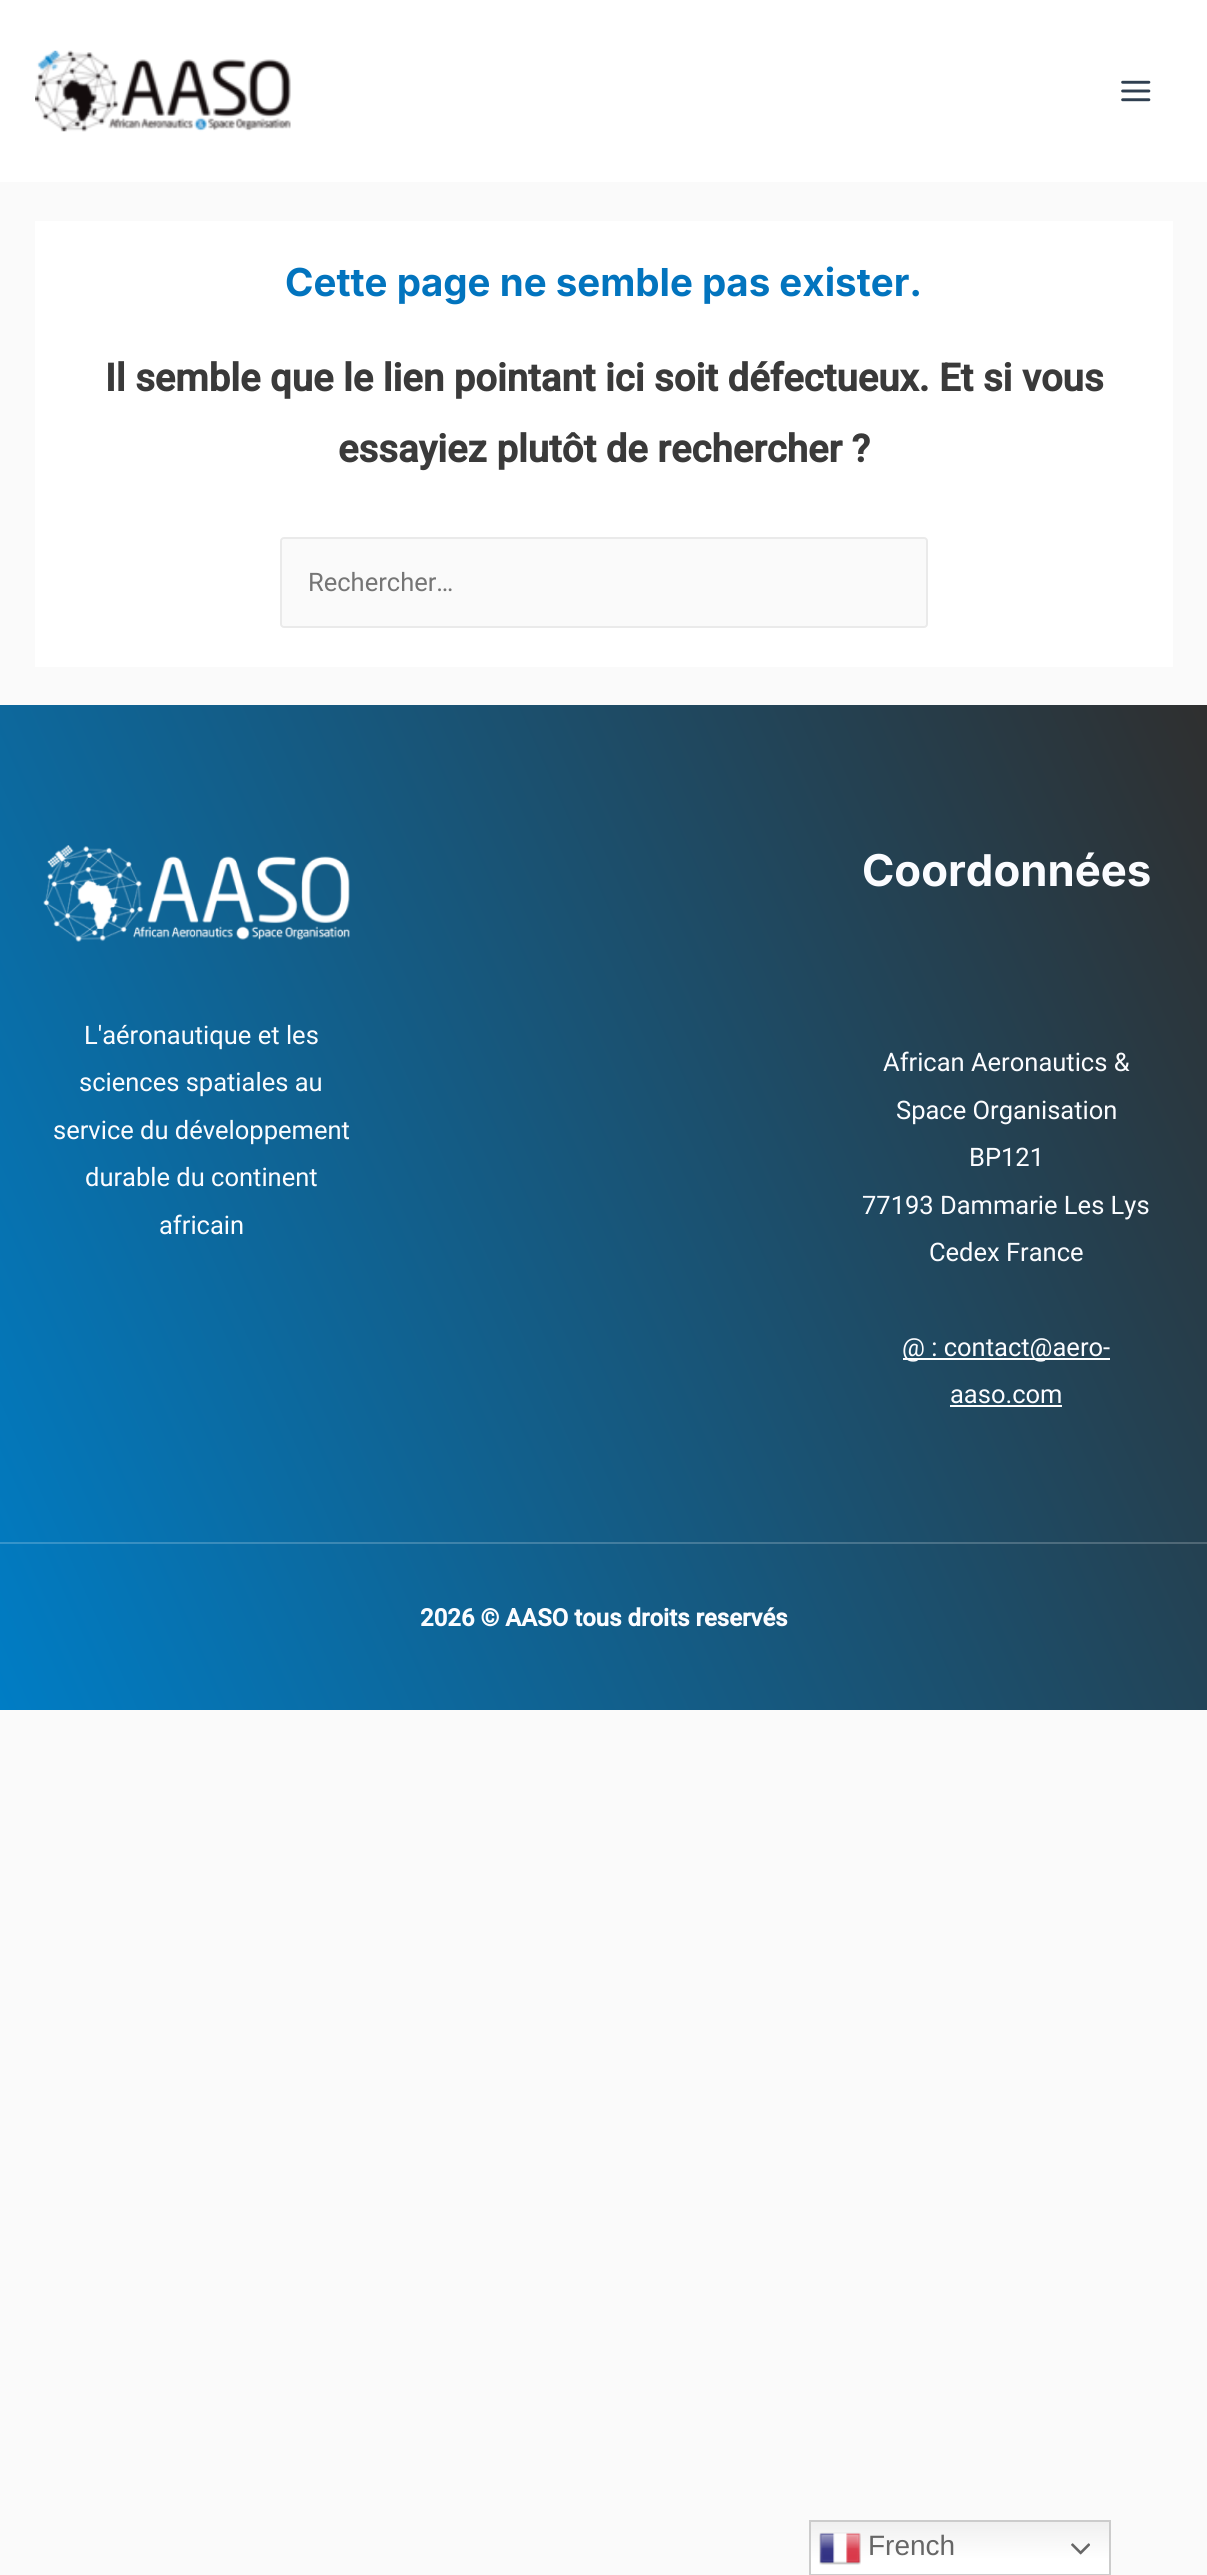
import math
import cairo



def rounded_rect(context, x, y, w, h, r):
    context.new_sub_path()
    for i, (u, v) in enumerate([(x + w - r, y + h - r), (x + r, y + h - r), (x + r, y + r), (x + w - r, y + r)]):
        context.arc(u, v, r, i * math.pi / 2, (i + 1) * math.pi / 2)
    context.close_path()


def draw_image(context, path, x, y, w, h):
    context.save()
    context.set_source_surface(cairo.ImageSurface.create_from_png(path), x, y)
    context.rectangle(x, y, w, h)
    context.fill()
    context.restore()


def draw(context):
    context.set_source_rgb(250 / 255, 250 / 255, 250 / 255)
    context.paint()
    context.set_source_rgb(1, 1, 1)
    context.rectangle(0, 0, 1207, 182)
    context.fill()
    draw_image(context, "images/1.png", 35, 50, 256, 82)
    draw_image(context, "images/2.png", 1121, 80, 30, 22)
    context.rectangle(35, 221, 1138, 446)
    context.fill()
    context.set_source_rgb(250 / 255, 250 / 255, 250 / 255)
    rounded_rect(context, 281, 538, 646, 89, 3)
    context.fill_preserve()
    context.set_source_rgb(234 / 255, 234 / 255, 234 / 255)
    context.stroke()
    gradient = cairo.LinearGradient(-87, 1515, 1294, 900)
    gradient.add_color_stop_rgba(0, 0, 125 / 255, 197 / 255, 1)
    gradient.add_color_stop_rgba(1, 47 / 255, 47 / 255, 47 / 255, 1)
    context.set_source(gradient)
    context.rectangle(0, 705, 1207, 1005)
    context.fill()
    gradient = cairo.LinearGradient(-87, 1515, 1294, 900)
    gradient.add_color_stop_rgba(0, 51 / 255, 151 / 255, 209 / 255, 1)
    gradient.add_color_stop_rgba(1, 89 / 255, 89 / 255, 89 / 255, 1)
    context.set_source(gradient)
    context.rectangle(0, 1542, 1207, 2)
    context.fill()
    draw_image(context, "images/3.png", 43, 845, 307, 97)
    context.set_source_rgb(1, 1, 1)
    context.rectangle(903, 1358, 207, 2)
    context.fill()
    context.rectangle(950, 1405, 112, 2)
    context.fill()
    gradient = cairo.LinearGradient(960, 2520, 960, 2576)
    gradient.add_color_stop_rgba(0, 239 / 255, 239 / 255, 239 / 255, 1)
    gradient.add_color_stop_rgba(0.7, 1, 1, 1, 1)
    context.set_source(gradient)
    context.rectangle(811, 2522, 298, 52)
    context.fill()
    context.rectangle(810, 2521, 300, 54)
    context.set_source_rgb(204 / 255, 204 / 255, 204 / 255)
    context.stroke()
    draw_image(context, "images/4.png", 819, 2532, 42, 33)
    draw_image(context, "images/5.png", 1071, 2543, 19, 12)
    context.select_font_face("Inter", cairo.FontSlant.NORMAL, cairo.FontWeight.BOLD)
    context.set_font_size(38.5)
    context.set_source_rgb(2 / 255, 116 / 255, 190 / 255)
    context.move_to(285, 296)
    context.show_text("Cette page ne semble pas exister.")
    context.select_font_face("Roboto", cairo.FontSlant.NORMAL, cairo.FontWeight.BOLD)
    context.set_font_size(38.3)
    context.set_source_rgb(58 / 255, 58 / 255, 58 / 255)
    context.move_to(105, 391)
    context.show_text("Il semble que le lien pointant ici soit défectueux. Et si vous")
    context.move_to(338, 462)
    context.show_text("essayiez plutôt de rechercher ?")
    context.select_font_face("Roboto")
    context.set_font_size(25.5)
    context.set_source_rgb(117 / 255, 117 / 255, 117 / 255)
    context.move_to(308, 591)
    context.show_text("Rechercher…")
    context.set_source_rgb(251 / 255, 252 / 255, 1)
    context.move_to(84, 1044)
    context.show_text("L'aéronautique et les")
    context.move_to(79, 1091)
    context.show_text("sciences spatiales au")
    context.move_to(53, 1139)
    context.show_text("service du développement")
    context.move_to(85, 1186)
    context.show_text("durable du continent")
    context.move_to(159, 1234)
    context.show_text("africain")
    context.select_font_face("Inter", cairo.FontSlant.NORMAL, cairo.FontWeight.BOLD)
    context.set_font_size(43.75)
    context.move_to(862, 886)
    context.show_text("Coordonnées")
    context.select_font_face("Roboto")
    context.set_font_size(25.5)
    context.move_to(883, 1071)
    context.show_text("African Aeronautics &")
    context.move_to(896, 1119)
    context.show_text("Space Organisation")
    context.move_to(969, 1166)
    context.show_text("BP121")
    context.move_to(862, 1214)
    context.show_text("77193 Dammarie Les Lys")
    context.move_to(929, 1261)
    context.show_text("Cedex France")
    context.move_to(902, 1356)
    context.show_text("@ : contact@aero-")
    context.move_to(950, 1403)
    context.show_text("aaso.com")
    context.select_font_face("Roboto", cairo.FontSlant.NORMAL, cairo.FontWeight.BOLD)
    context.set_font_size(24)
    context.move_to(420, 1626)
    context.show_text("2026 © AASO tous droits reservés")
    context.select_font_face("Liberation Sans")
    context.set_font_size(28)
    context.set_source_rgb(102 / 255, 102 / 255, 102 / 255)
    context.move_to(868, 2555)
    context.show_text("French")


surface = cairo.ImageSurface(cairo.Format.RGB24, 1207, 2575)
context = cairo.Context(surface)
options = cairo.FontOptions()
options.set_hint_metrics(cairo.HintMetrics.OFF)
options.set_hint_style(cairo.HintStyle.NONE)
context.set_font_options(options)
context.set_miter_limit(4)
draw(context)
surface.write_to_png("out.png")
